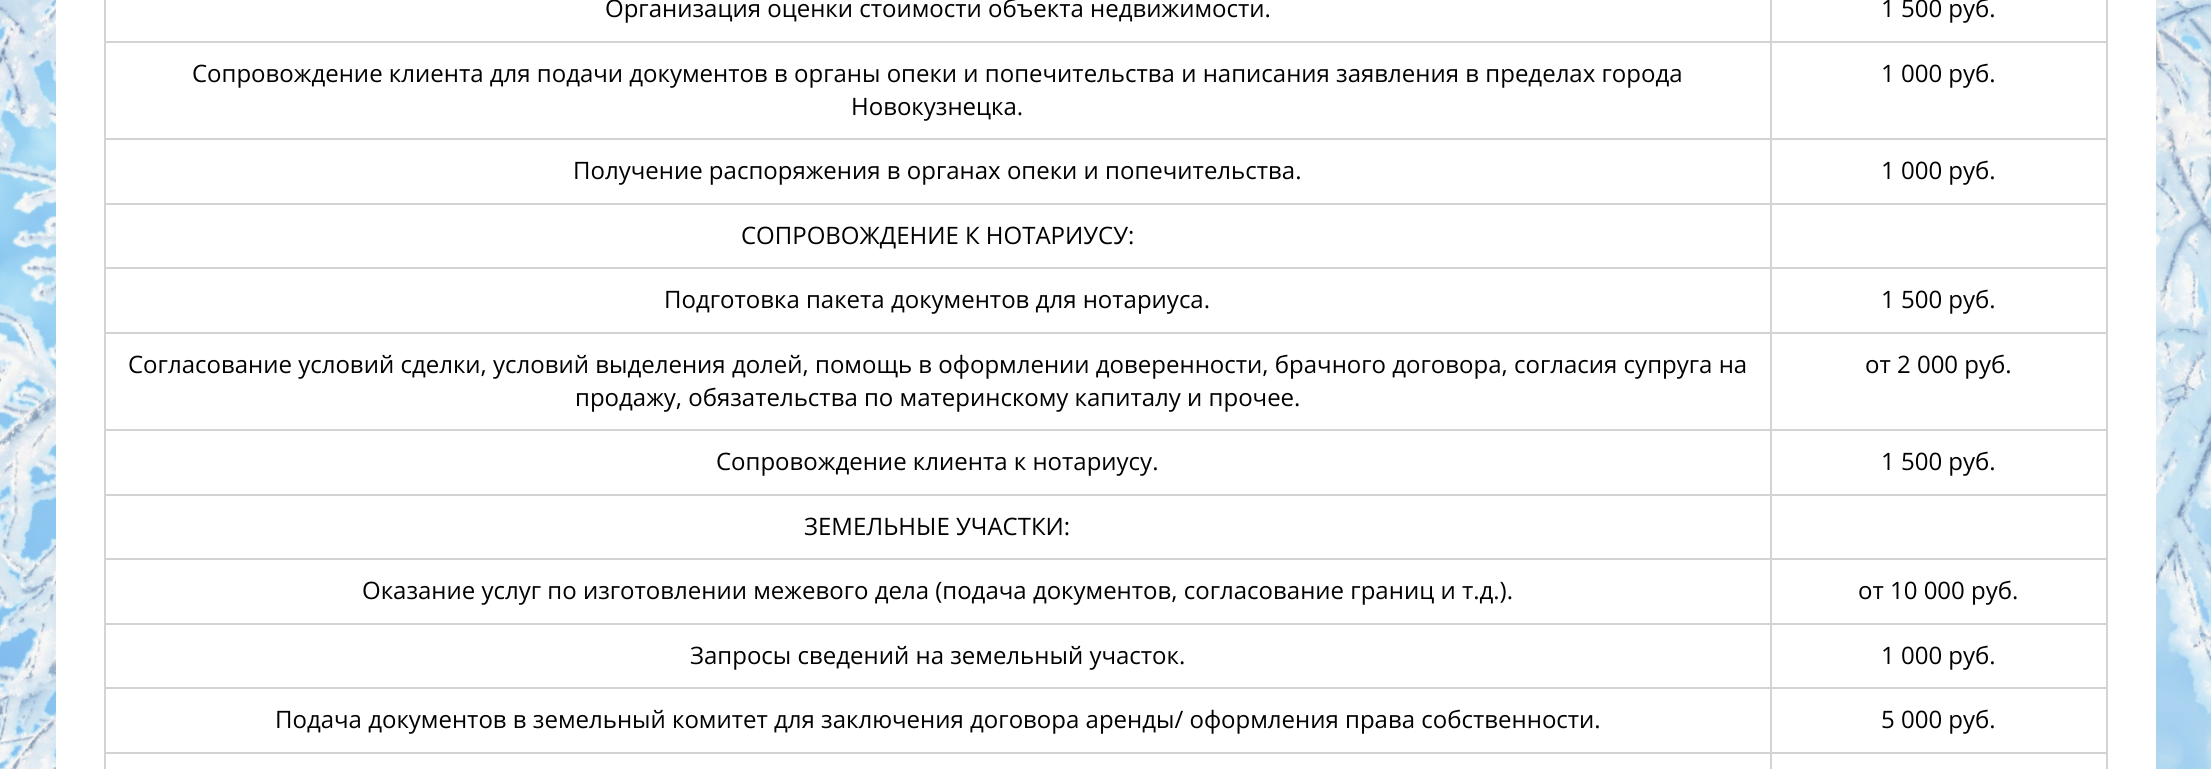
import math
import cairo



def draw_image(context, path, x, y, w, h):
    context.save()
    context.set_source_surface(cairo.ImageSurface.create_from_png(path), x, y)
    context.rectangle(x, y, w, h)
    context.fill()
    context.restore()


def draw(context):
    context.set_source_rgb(238 / 255, 244 / 255, 246 / 255)
    context.paint()
    draw_image(context, "images/1.png", 0, 0, 2211, 769)
    context.set_source_rgb(1, 1, 1)
    context.rectangle(56, 0, 2100, 769)
    context.fill()
    context.set_source_rgb(211 / 255, 211 / 255, 211 / 255)
    context.rectangle(1770, 41, 338, 2)
    context.fill()
    context.rectangle(1770, 138, 338, 2)
    context.fill()
    context.rectangle(1770, 203, 338, 2)
    context.fill()
    context.rectangle(1770, 267, 338, 2)
    context.fill()
    context.rectangle(1770, 332, 338, 2)
    context.fill()
    context.rectangle(1770, 429, 338, 2)
    context.fill()
    context.rectangle(1770, 494, 338, 2)
    context.fill()
    context.rectangle(1770, 558, 338, 2)
    context.fill()
    context.rectangle(1770, 623, 338, 2)
    context.fill()
    context.rectangle(1770, 687, 338, 2)
    context.fill()
    context.rectangle(1770, 752, 338, 2)
    context.fill()
    context.rectangle(1770, 752, 2, 17)
    context.fill()
    context.rectangle(104, 752, 1668, 2)
    context.fill()
    context.rectangle(1770, 687, 2, 66)
    context.fill()
    context.rectangle(104, 687, 1668, 2)
    context.fill()
    context.rectangle(1770, 623, 2, 66)
    context.fill()
    context.rectangle(104, 623, 1668, 2)
    context.fill()
    context.rectangle(1770, 558, 2, 66)
    context.fill()
    context.rectangle(104, 558, 1668, 2)
    context.fill()
    context.rectangle(1770, 494, 2, 66)
    context.fill()
    context.rectangle(104, 494, 1668, 2)
    context.fill()
    context.rectangle(1770, 429, 2, 66)
    context.fill()
    context.rectangle(104, 429, 1668, 2)
    context.fill()
    context.rectangle(1770, 332, 2, 99)
    context.fill()
    context.rectangle(104, 332, 1668, 2)
    context.fill()
    context.rectangle(1770, 267, 2, 66)
    context.fill()
    context.rectangle(104, 267, 1668, 2)
    context.fill()
    context.rectangle(1770, 203, 2, 66)
    context.fill()
    context.rectangle(104, 203, 1668, 2)
    context.fill()
    context.rectangle(1770, 138, 2, 66)
    context.fill()
    context.rectangle(104, 138, 1668, 2)
    context.fill()
    context.rectangle(1770, 41, 2, 99)
    context.fill()
    context.rectangle(104, 41, 1668, 2)
    context.fill()
    context.rectangle(1770, 0, 2, 42)
    context.fill()
    context.rectangle(104, 752, 2, 17)
    context.fill()
    context.rectangle(104, 687, 2, 66)
    context.fill()
    context.rectangle(104, 623, 2, 66)
    context.fill()
    context.rectangle(104, 558, 2, 66)
    context.fill()
    context.rectangle(104, 494, 2, 66)
    context.fill()
    context.rectangle(104, 429, 2, 66)
    context.fill()
    context.rectangle(104, 332, 2, 99)
    context.fill()
    context.rectangle(104, 267, 2, 66)
    context.fill()
    context.rectangle(104, 203, 2, 66)
    context.fill()
    context.rectangle(104, 138, 2, 66)
    context.fill()
    context.rectangle(104, 0, 2, 140)
    context.fill()
    context.rectangle(2106, 752, 2, 17)
    context.fill()
    context.rectangle(2106, 687, 2, 66)
    context.fill()
    context.rectangle(2106, 623, 2, 66)
    context.fill()
    context.rectangle(2106, 558, 2, 66)
    context.fill()
    context.rectangle(2106, 494, 2, 66)
    context.fill()
    context.rectangle(2106, 429, 2, 66)
    context.fill()
    context.rectangle(2106, 332, 2, 99)
    context.fill()
    context.rectangle(2106, 267, 2, 66)
    context.fill()
    context.rectangle(2106, 203, 2, 66)
    context.fill()
    context.rectangle(2106, 138, 2, 66)
    context.fill()
    context.rectangle(2106, 0, 2, 140)
    context.fill()
    context.select_font_face("Open Sans")
    context.set_font_size(24)
    context.set_source_rgb(0, 0, 0)
    context.move_to(605, 17)
    context.show_text("Организация оценки стоимости объекта недвижимости.")
    context.move_to(1881, 17)
    context.show_text("1 500 руб.")
    context.move_to(192, 82)
    context.show_text("Сопровождение клиента для подачи документов в органы опеки и попечительства и написания заявления в пределах города")
    context.move_to(851, 115)
    context.show_text("Новокузнецка.")
    context.move_to(1881, 82)
    context.show_text("1 000 руб.")
    context.move_to(573, 179)
    context.show_text("Получение распоряжения в органах опеки и попечительства.")
    context.move_to(1881, 179)
    context.show_text("1 000 руб.")
    context.move_to(741, 244)
    context.show_text("СОПРОВОЖДЕНИЕ К НОТАРИУСУ:")
    context.move_to(664, 308)
    context.show_text("Подготовка пакета документов для нотариуса.")
    context.move_to(1881, 308)
    context.show_text("1 500 руб.")
    context.move_to(128, 373)
    context.show_text("Согласование условий сделки, условий выделения долей, помощь в оформлении доверенности, брачного договора, согласия супруга на")
    context.move_to(575, 406)
    context.show_text("продажу, обязательства по материнскому капиталу и прочее.")
    context.move_to(1865, 373)
    context.show_text("от 2 000 руб.")
    context.move_to(716, 470)
    context.show_text("Сопровождение клиента к нотариусу.")
    context.move_to(1881, 470)
    context.show_text("1 500 руб.")
    context.move_to(804, 535)
    context.show_text("ЗЕМЕЛЬНЫЕ УЧАСТКИ:")
    context.move_to(362, 599)
    context.show_text("Оказание услуг по изготовлении межевого дела (подача документов, согласование границ и т.д.).")
    context.move_to(1858, 599)
    context.show_text("от 10 000 руб.")
    context.move_to(690, 664)
    context.show_text("Запросы сведений на земельный участок.")
    context.move_to(1881, 664)
    context.show_text("1 000 руб.")
    context.move_to(275, 728)
    context.show_text("Подача документов в земельный комитет для заключения договора аренды/ оформления права собственности.")
    context.move_to(1881, 728)
    context.show_text("5 000 руб.")


surface = cairo.ImageSurface(cairo.Format.RGB24, 2211, 769)
context = cairo.Context(surface)
options = cairo.FontOptions()
options.set_hint_metrics(cairo.HintMetrics.OFF)
options.set_hint_style(cairo.HintStyle.NONE)
context.set_font_options(options)
context.set_miter_limit(4)
draw(context)
surface.write_to_png("out.png")
